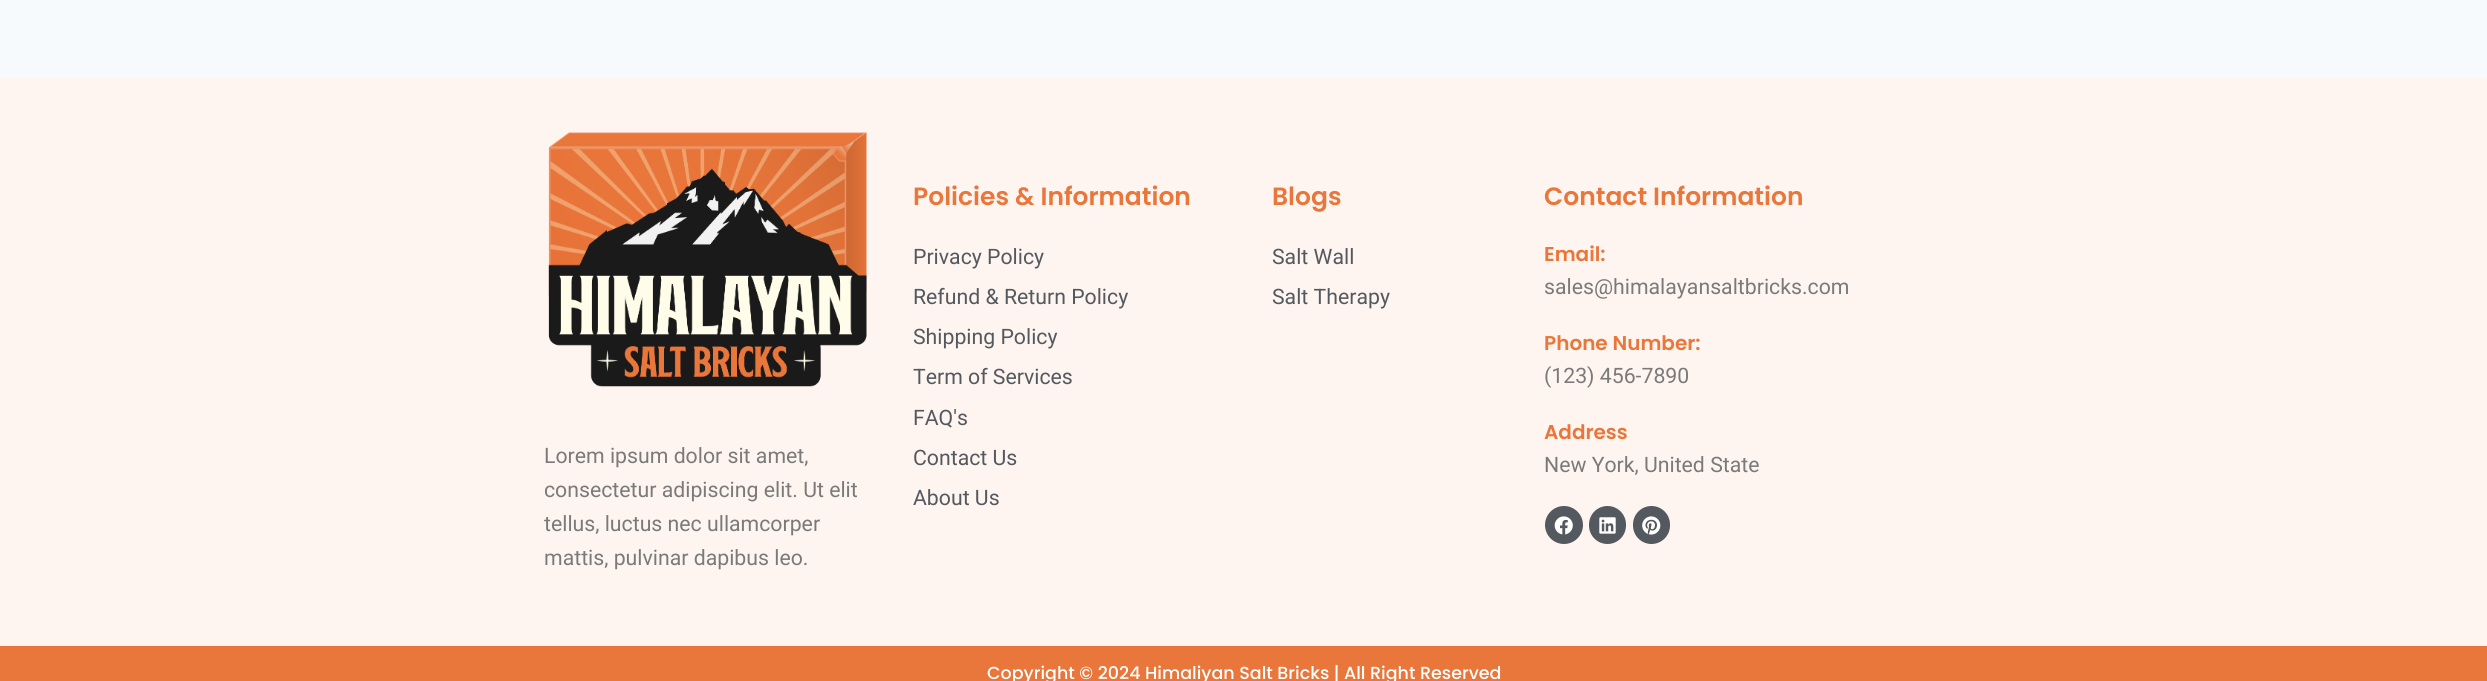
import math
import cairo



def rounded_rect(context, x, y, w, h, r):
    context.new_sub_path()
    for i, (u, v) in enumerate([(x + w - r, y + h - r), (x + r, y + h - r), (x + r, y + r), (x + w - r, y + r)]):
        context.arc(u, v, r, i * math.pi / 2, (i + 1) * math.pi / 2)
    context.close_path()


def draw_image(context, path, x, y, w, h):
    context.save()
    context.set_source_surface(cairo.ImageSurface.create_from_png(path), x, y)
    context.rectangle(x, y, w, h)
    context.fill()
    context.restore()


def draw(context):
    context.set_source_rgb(247 / 255, 250 / 255, 252 / 255)
    context.paint()
    context.set_source_rgb(1, 245 / 255, 240 / 255)
    context.rectangle(0, 78, 2487, 568)
    context.fill()
    context.set_source_rgb(84 / 255, 89 / 255, 95 / 255)
    context.arc(1564, 525, 19, 0, 2 * math.pi)
    context.fill()
    draw_image(context, "images/1.png", 1554, 516, 19, 19)
    rounded_rect(context, 1589, 506, 37, 38, 18.5)
    context.fill()
    draw_image(context, "images/2.png", 1599, 517, 17, 17)
    rounded_rect(context, 1633, 506, 37, 38, 18.5)
    context.fill()
    draw_image(context, "images/3.png", 1642, 516, 19, 19)
    draw_image(context, "images/4.png", 548, 132, 319, 255)
    context.set_source_rgb(233 / 255, 118 / 255, 58 / 255)
    context.rectangle(0, 646, 2487, 35)
    context.fill()
    context.select_font_face("Poppins SemiBold")
    context.set_font_size(25)
    context.move_to(913, 205)
    context.show_text("Policies & Information")
    context.select_font_face("Roboto")
    context.set_font_size(21.25)
    context.set_source_rgb(84 / 255, 89 / 255, 95 / 255)
    context.move_to(913, 264)
    context.show_text("Privacy Policy")
    context.move_to(913, 304)
    context.show_text("Refund & Return Policy")
    context.move_to(913, 344)
    context.show_text("Shipping Policy")
    context.move_to(913, 384)
    context.show_text("Term of Services")
    context.move_to(913, 425)
    context.show_text("FAQ's")
    context.move_to(913, 465)
    context.show_text("Contact Us")
    context.move_to(913, 505)
    context.show_text("About Us")
    context.select_font_face("Poppins SemiBold")
    context.set_font_size(25)
    context.set_source_rgb(233 / 255, 118 / 255, 58 / 255)
    context.move_to(1272, 205)
    context.show_text("Blogs")
    context.select_font_face("Roboto")
    context.set_font_size(21.25)
    context.set_source_rgb(84 / 255, 89 / 255, 95 / 255)
    context.move_to(1272, 264)
    context.show_text("Salt Wall")
    context.move_to(1272, 304)
    context.show_text("Salt Therapy")
    context.select_font_face("Poppins SemiBold")
    context.set_font_size(25)
    context.set_source_rgb(233 / 255, 118 / 255, 58 / 255)
    context.move_to(1544, 205)
    context.show_text("Contact Information")
    context.set_font_size(20)
    context.move_to(1544, 261)
    context.show_text("Email:")
    context.select_font_face("Roboto")
    context.set_font_size(21.25)
    context.set_source_rgb(122 / 255, 122 / 255, 122 / 255)
    context.move_to(1544, 294)
    context.show_text("sales@himalayansaltbricks.com")
    context.select_font_face("Poppins SemiBold")
    context.set_font_size(20)
    context.set_source_rgb(233 / 255, 118 / 255, 58 / 255)
    context.move_to(1544, 350)
    context.show_text("Phone Number:")
    context.select_font_face("Roboto")
    context.set_font_size(21.25)
    context.set_source_rgb(122 / 255, 122 / 255, 122 / 255)
    context.move_to(1544, 383)
    context.show_text("(123) 456-7890")
    context.select_font_face("Poppins SemiBold")
    context.set_font_size(20)
    context.set_source_rgb(233 / 255, 118 / 255, 58 / 255)
    context.move_to(1544, 439)
    context.show_text("Address")
    context.select_font_face("Roboto")
    context.set_font_size(21.25)
    context.set_source_rgb(122 / 255, 122 / 255, 122 / 255)
    context.move_to(1544, 472)
    context.show_text("New York, United State")
    context.move_to(544, 463)
    context.show_text("Lorem ipsum dolor sit amet,")
    context.move_to(544, 497)
    context.show_text("consectetur adipiscing elit. Ut elit")
    context.move_to(544, 531)
    context.show_text("tellus, luctus nec ullamcorper")
    context.move_to(544, 565)
    context.show_text("mattis, pulvinar dapibus leo.")
    context.select_font_face("Poppins Medium")
    context.set_font_size(17.5)
    context.set_source_rgb(1, 1, 1)
    context.move_to(987, 679)
    context.show_text("Copyright © 2024 Himaliyan Salt Bricks | All Right Reserved")


surface = cairo.ImageSurface(cairo.Format.RGB24, 2487, 681)
context = cairo.Context(surface)
options = cairo.FontOptions()
options.set_hint_metrics(cairo.HintMetrics.OFF)
options.set_hint_style(cairo.HintStyle.NONE)
context.set_font_options(options)
context.set_miter_limit(4)
draw(context)
surface.write_to_png("out.png")
